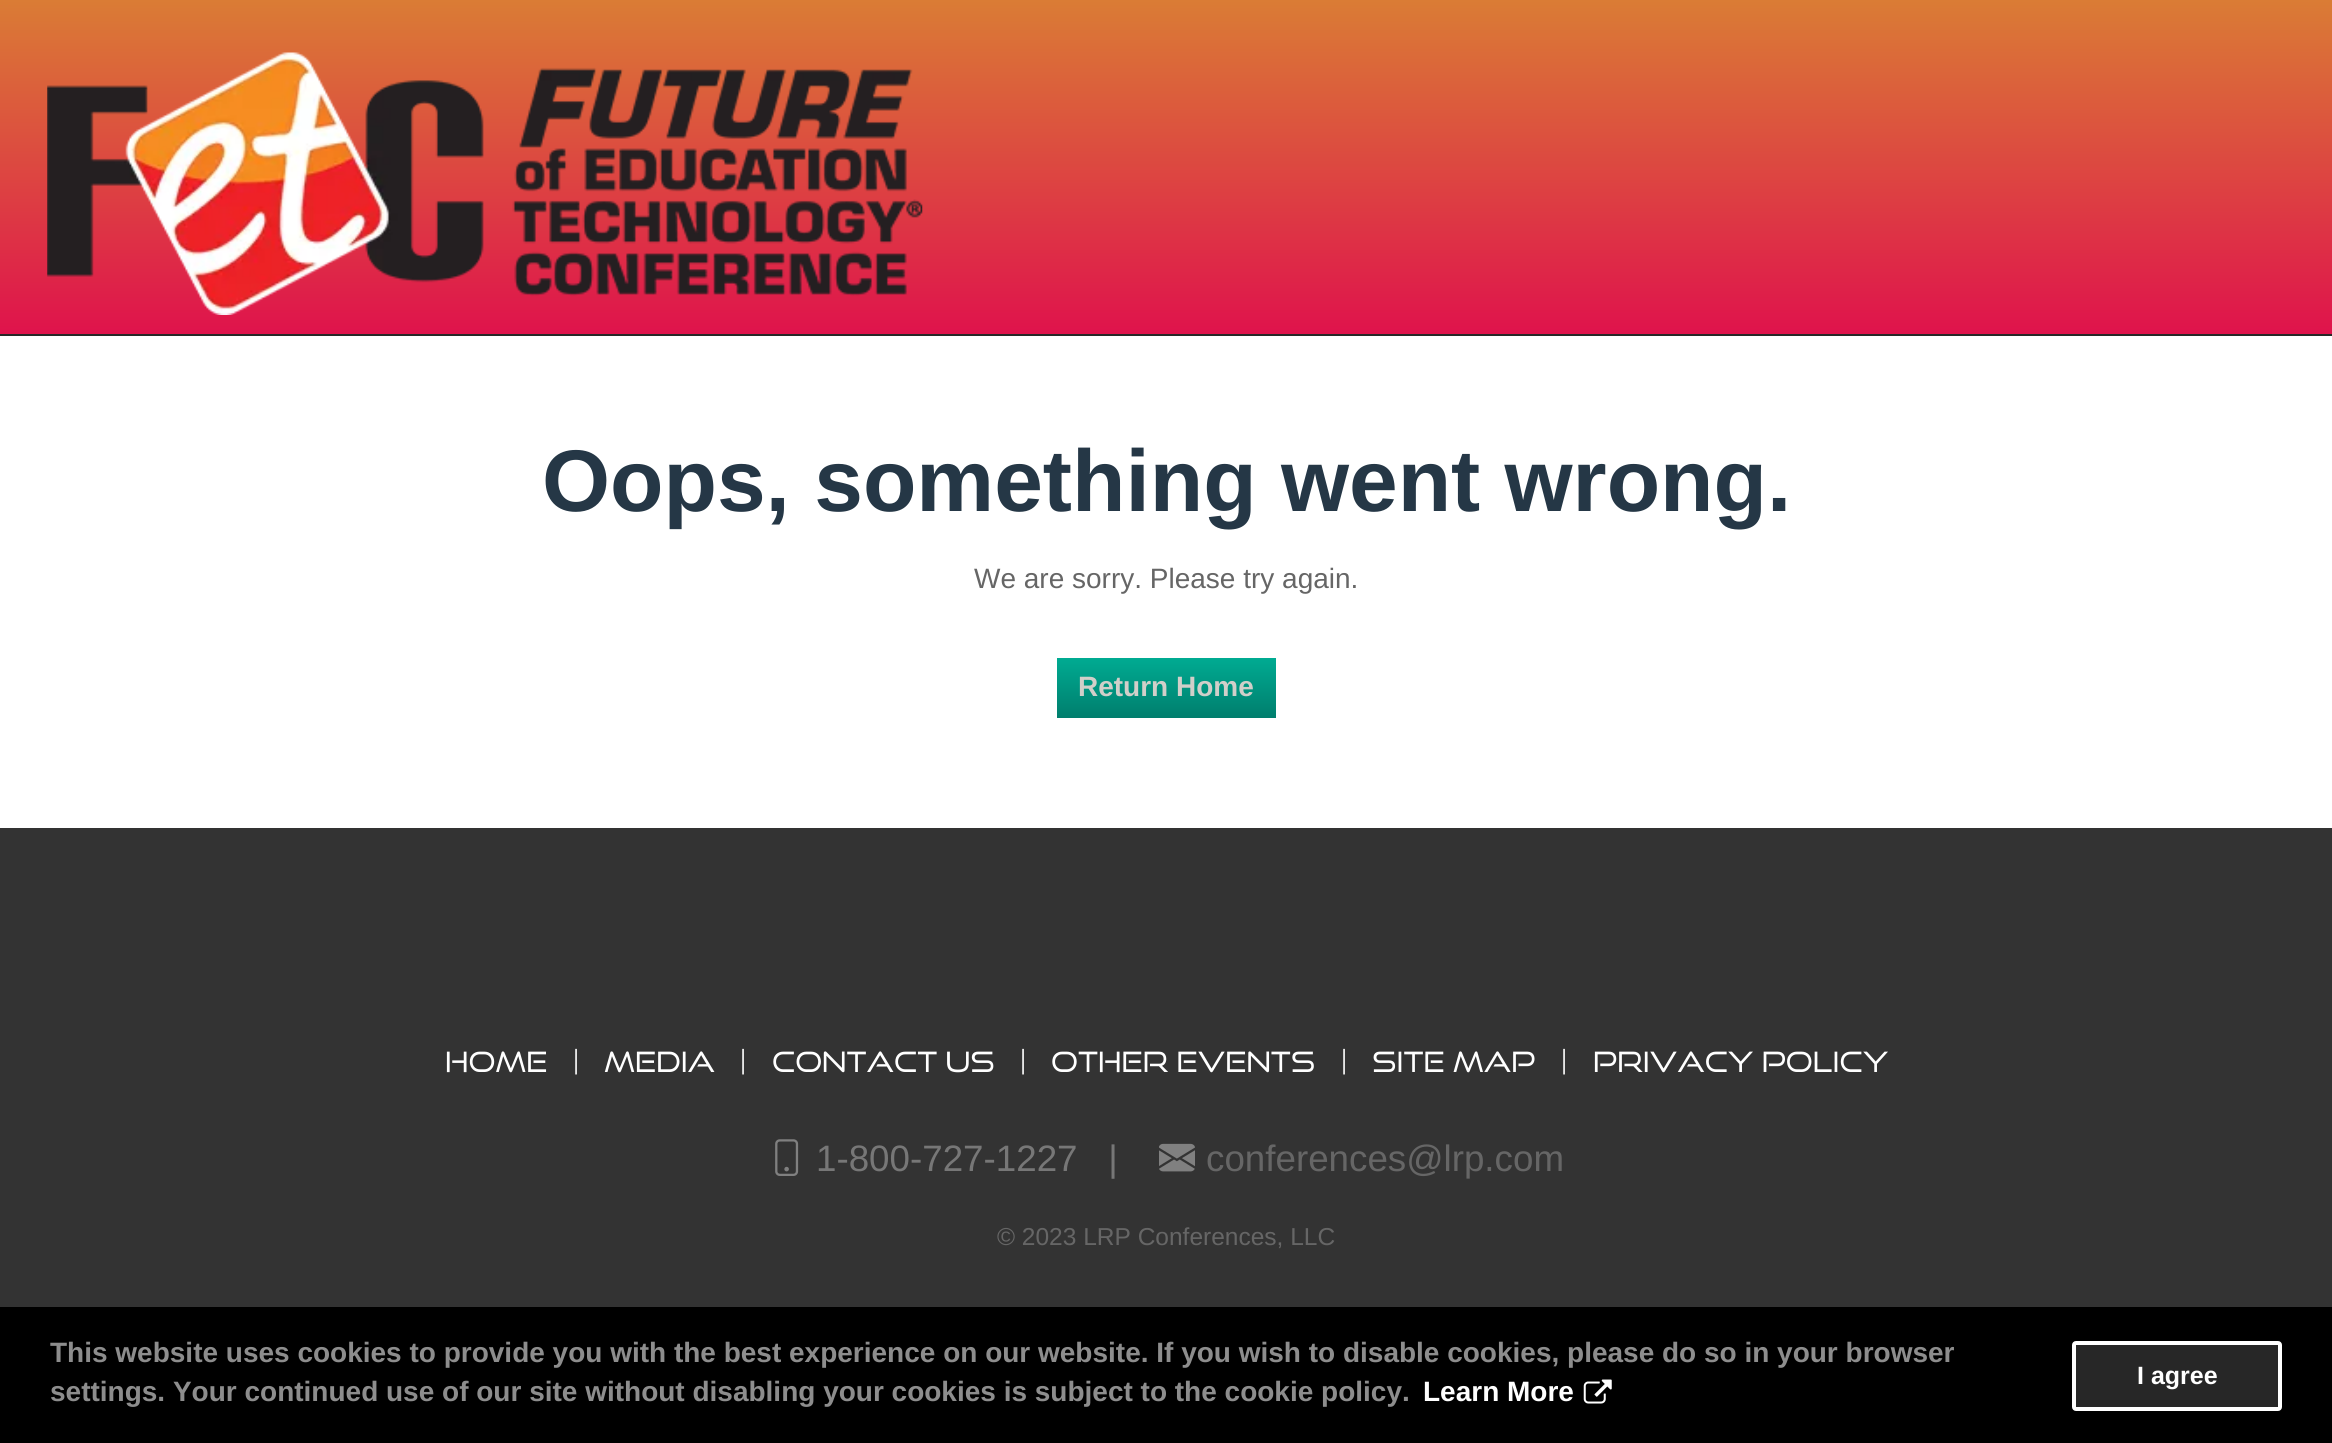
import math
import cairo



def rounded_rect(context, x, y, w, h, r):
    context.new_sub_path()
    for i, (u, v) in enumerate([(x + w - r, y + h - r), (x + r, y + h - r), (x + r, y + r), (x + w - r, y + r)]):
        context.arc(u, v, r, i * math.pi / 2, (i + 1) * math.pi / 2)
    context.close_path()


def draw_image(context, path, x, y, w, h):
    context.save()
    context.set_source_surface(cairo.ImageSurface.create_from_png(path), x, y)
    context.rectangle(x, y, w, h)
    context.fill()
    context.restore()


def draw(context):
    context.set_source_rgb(1, 1, 1)
    context.paint()
    gradient = cairo.LinearGradient(1166, 0, 1166, 334)
    gradient.add_color_stop_rgba(0, 218 / 255, 124 / 255, 53 / 255, 1)
    gradient.add_color_stop_rgba(1, 223 / 255, 19 / 255, 76 / 255, 1)
    context.set_source(gradient)
    context.rectangle(0, 0, 2332, 334)
    context.fill()
    context.set_source_rgb(40 / 255, 40 / 255, 40 / 255)
    context.rectangle(0, 334, 2332, 2)
    context.fill()
    draw_image(context, "images/1.png", 47, 52, 876, 263)
    gradient = cairo.LinearGradient(1166, 658, 1166, 718)
    gradient.add_color_stop_rgba(0, 0, 171 / 255, 146 / 255, 1)
    gradient.add_color_stop_rgba(1, 0, 126 / 255, 109 / 255, 1)
    context.set_source(gradient)
    context.rectangle(1057, 658, 219, 60)
    context.fill()
    context.set_source_rgb(51 / 255, 51 / 255, 51 / 255)
    context.rectangle(0, 828, 2332, 479)
    context.fill()
    draw_image(context, "images/2.png", 775, 1139, 24, 37)
    draw_image(context, "images/3.png", 1159, 1143, 36, 29)
    context.set_source_rgb(0, 0, 0)
    context.rectangle(0, 1307, 2332, 136)
    context.fill()
    draw_image(context, "images/4.png", 1583, 1379, 29, 25)
    context.set_source_rgb(39 / 255, 39 / 255, 39 / 255)
    rounded_rect(context, 2074, 1343, 206, 66, 2)
    context.fill_preserve()
    context.set_source_rgb(1, 1, 1)
    context.set_line_width(4)
    context.stroke()
    context.select_font_face("Liberation Sans", cairo.FontSlant.NORMAL, cairo.FontWeight.BOLD)
    context.set_font_size(87.5)
    context.set_source_rgb(37 / 255, 55 / 255, 70 / 255)
    context.move_to(542, 511)
    context.show_text("Oops, something went wrong.")
    context.select_font_face("Liberation Sans")
    context.set_font_size(28)
    context.set_source_rgb(102 / 255, 102 / 255, 102 / 255)
    context.move_to(974, 588)
    context.show_text("We are sorry. Please try again.")
    context.select_font_face("Liberation Sans", cairo.FontSlant.NORMAL, cairo.FontWeight.BOLD)
    context.set_source_rgb(209 / 255, 207 / 255, 201 / 255)
    context.move_to(1078, 696)
    context.show_text("Return Home")
    context.select_font_face("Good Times")
    context.set_source_rgb(1, 1, 1)
    context.move_to(445, 1072)
    context.show_text("HOME")
    context.move_to(572, 1072)
    context.show_text("|")
    context.move_to(604, 1072)
    context.show_text("MEDIA")
    context.move_to(739, 1072)
    context.show_text("|")
    context.move_to(772, 1072)
    context.show_text("CONTACT US")
    context.move_to(1019, 1072)
    context.show_text("|")
    context.move_to(1051, 1072)
    context.show_text("OTHER EVENTS")
    context.move_to(1340, 1072)
    context.show_text("|")
    context.move_to(1372, 1072)
    context.show_text("SITE MAP")
    context.move_to(1560, 1072)
    context.show_text("|")
    context.move_to(1593, 1072)
    context.show_text("PRIVACY POLICY")
    context.select_font_face("Liberation Sans")
    context.set_font_size(36.75)
    context.set_source_rgb(119 / 255, 119 / 255, 119 / 255)
    context.move_to(816, 1171)
    context.show_text("1-800-727-1227   |")
    context.set_source_rgb(102 / 255, 102 / 255, 102 / 255)
    context.move_to(1206, 1171)
    context.show_text("conferences@lrp.com")
    context.set_font_size(24.5)
    context.move_to(997, 1245)
    context.show_text("© 2023 LRP Conferences, LLC")
    context.select_font_face("Liberation Sans", cairo.FontSlant.NORMAL, cairo.FontWeight.BOLD)
    context.set_font_size(28)
    context.set_source_rgb(141 / 255, 141 / 255, 141 / 255)
    context.move_to(50, 1362)
    context.show_text("This website uses cookies to provide you with the best experience on our website. If you wish to disable cookies, please do so in your browser")
    context.move_to(50, 1401)
    context.show_text("settings. Your continued use of our site without disabling your cookies is subject to the cookie policy.")
    context.set_source_rgb(1, 1, 1)
    context.move_to(1423, 1401)
    context.show_text("Learn More")
    context.set_font_size(25)
    context.move_to(2137, 1384)
    context.show_text("I agree")


surface = cairo.ImageSurface(cairo.Format.RGB24, 2332, 1443)
context = cairo.Context(surface)
options = cairo.FontOptions()
options.set_hint_metrics(cairo.HintMetrics.OFF)
options.set_hint_style(cairo.HintStyle.NONE)
context.set_font_options(options)
context.set_miter_limit(4)
draw(context)
surface.write_to_png("out.png")
